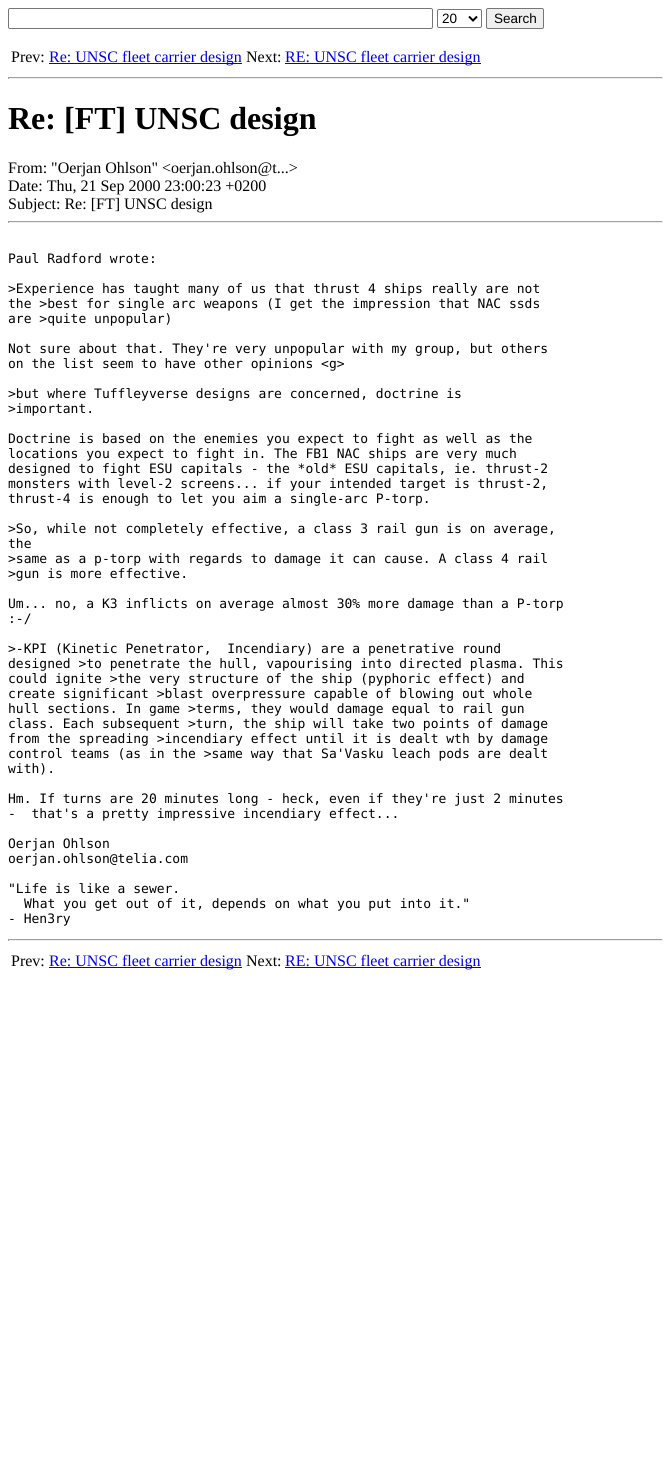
import math
import cairo



def rounded_rect(context, x, y, w, h, r):
    context.new_sub_path()
    for i, (u, v) in enumerate([(x + w - r, y + h - r), (x + r, y + h - r), (x + r, y + r), (x + w - r, y + r)]):
        context.arc(u, v, r, i * math.pi / 2, (i + 1) * math.pi / 2)
    context.close_path()


def draw(context):
    context.set_source_rgb(1, 1, 1)
    context.paint()
    rounded_rect(context, 8.5, 8.5, 424, 20, 1.5)
    context.set_source_rgb(118 / 255, 118 / 255, 118 / 255)
    context.set_line_width(1)
    context.stroke()
    rounded_rect(context, 437.5, 9.5, 44, 18, 1.5)
    context.stroke()
    context.new_path()
    context.move_to(469, 16.5)
    context.line_to(473, 20.5)
    context.line_to(477, 16.5)
    context.set_source_rgb(0, 0, 0)
    context.set_line_width(2)
    context.stroke()
    context.set_source_rgb(239 / 255, 239 / 255, 239 / 255)
    rounded_rect(context, 486.5, 8.5, 57, 20, 1.5)
    context.fill_preserve()
    context.set_source_rgb(118 / 255, 118 / 255, 118 / 255)
    context.set_line_width(1)
    context.stroke()
    context.set_source_rgb(0, 0, 238 / 255)
    context.rectangle(49, 63, 193, 1)
    context.fill()
    context.rectangle(285, 63, 196, 1)
    context.fill()
    context.set_source_rgb(159 / 255, 159 / 255, 159 / 255)
    context.rectangle(8, 77, 655, 1)
    context.fill()
    context.set_source_rgb(238 / 255, 238 / 255, 238 / 255)
    context.rectangle(662, 77, 1, 2)
    context.fill()
    context.rectangle(8, 78, 655, 1)
    context.fill()
    context.set_source_rgb(159 / 255, 159 / 255, 159 / 255)
    context.rectangle(8, 77, 1, 2)
    context.fill()
    context.rectangle(8, 221, 655, 1)
    context.fill()
    context.set_source_rgb(238 / 255, 238 / 255, 238 / 255)
    context.rectangle(662, 221, 1, 2)
    context.fill()
    context.rectangle(8, 222, 655, 1)
    context.fill()
    context.set_source_rgb(159 / 255, 159 / 255, 159 / 255)
    context.rectangle(8, 221, 1, 2)
    context.fill()
    context.rectangle(8, 939, 655, 1)
    context.fill()
    context.set_source_rgb(238 / 255, 238 / 255, 238 / 255)
    context.rectangle(662, 939, 1, 2)
    context.fill()
    context.rectangle(8, 940, 655, 1)
    context.fill()
    context.set_source_rgb(159 / 255, 159 / 255, 159 / 255)
    context.rectangle(8, 939, 1, 2)
    context.fill()
    context.set_source_rgb(0, 0, 238 / 255)
    context.rectangle(49, 967, 193, 1)
    context.fill()
    context.rectangle(285, 967, 196, 1)
    context.fill()
    context.select_font_face("Liberation Sans")
    context.set_font_size(13.5)
    context.set_source_rgb(0, 0, 0)
    context.move_to(442, 23)
    context.show_text("20")
    context.move_to(494, 23)
    context.show_text("Search")
    context.select_font_face("Liberation Serif")
    context.set_font_size(16)
    context.move_to(11, 62)
    context.show_text("Prev:")
    context.set_source_rgb(0, 0, 238 / 255)
    context.move_to(49, 62)
    context.show_text("Re: UNSC fleet carrier design")
    context.set_source_rgb(0, 0, 0)
    context.move_to(246, 62)
    context.show_text("Next:")
    context.set_source_rgb(0, 0, 238 / 255)
    context.move_to(285, 62)
    context.show_text("RE: UNSC fleet carrier design")
    context.select_font_face("Liberation Serif", cairo.FontSlant.NORMAL, cairo.FontWeight.BOLD)
    context.set_font_size(32)
    context.set_source_rgb(0, 0, 0)
    context.move_to(8, 129)
    context.show_text("Re: [FT] UNSC design")
    context.select_font_face("Liberation Serif")
    context.set_font_size(16)
    context.move_to(8, 173)
    context.show_text("From: \"Oerjan Ohlson\" <oerjan.ohlson@t...>")
    context.move_to(8, 191)
    context.show_text("Date: Thu, 21 Sep 2000 23:00:23 +0200")
    context.move_to(8, 209)
    context.show_text("Subject: Re: [FT] UNSC design")
    context.select_font_face("DejaVu Sans Mono")
    context.set_font_size(13)
    context.move_to(8, 263)
    context.show_text("Paul Radford wrote:")
    context.move_to(8, 293)
    context.show_text(">Experience has taught many of us that thrust 4 ships really are not")
    context.move_to(8, 308)
    context.show_text("the >best for single arc weapons (I get the impression that NAC ssds")
    context.move_to(8, 323)
    context.show_text("are >quite unpopular)")
    context.move_to(8, 353)
    context.show_text("Not sure about that. They're very unpopular with my group, but others")
    context.move_to(8, 368)
    context.show_text("on the list seem to have other opinions <g>")
    context.move_to(8, 398)
    context.show_text(">but where Tuffleyverse designs are concerned, doctrine is")
    context.move_to(8, 413)
    context.show_text(">important.")
    context.move_to(8, 443)
    context.show_text("Doctrine is based on the enemies you expect to fight as well as the")
    context.move_to(8, 458)
    context.show_text("locations you expect to fight in. The FB1 NAC ships are very much")
    context.move_to(8, 473)
    context.show_text("designed to fight ESU capitals - the *old* ESU capitals, ie. thrust-2")
    context.move_to(8, 488)
    context.show_text("monsters with level-2 screens... if your intended target is thrust-2,")
    context.move_to(8, 503)
    context.show_text("thrust-4 is enough to let you aim a single-arc P-torp.")
    context.move_to(8, 533)
    context.show_text(">So, while not completely effective, a class 3 rail gun is on average,")
    context.move_to(8, 548)
    context.show_text("the")
    context.move_to(8, 563)
    context.show_text(">same as a p-torp with regards to damage it can cause. A class 4 rail")
    context.move_to(8, 578)
    context.show_text(">gun is more effective.")
    context.move_to(8, 608)
    context.show_text("Um... no, a K3 inflicts on average almost 30% more damage than a P-torp")
    context.move_to(8, 623)
    context.show_text(":-/")
    context.move_to(8, 653)
    context.show_text(">-KPI (Kinetic Penetrator,  Incendiary) are a penetrative round")
    context.move_to(8, 668)
    context.show_text("designed >to penetrate the hull, vapourising into directed plasma. This")
    context.move_to(8, 683)
    context.show_text("could ignite >the very structure of the ship (pyphoric effect) and")
    context.move_to(8, 698)
    context.show_text("create significant >blast overpressure capable of blowing out whole")
    context.move_to(8, 713)
    context.show_text("hull sections. In game >terms, they would damage equal to rail gun")
    context.move_to(8, 728)
    context.show_text("class. Each subsequent >turn, the ship will take two points of damage")
    context.move_to(8, 743)
    context.show_text("from the spreading >incendiary effect until it is dealt wth by damage")
    context.move_to(8, 758)
    context.show_text("control teams (as in the >same way that Sa'Vasku leach pods are dealt")
    context.move_to(8, 773)
    context.show_text("with).")
    context.move_to(8, 803)
    context.show_text("Hm. If turns are 20 minutes long - heck, even if they're just 2 minutes")
    context.move_to(8, 818)
    context.show_text("-  that's a pretty impressive incendiary effect...")
    context.move_to(8, 848)
    context.show_text("Oerjan Ohlson")
    context.move_to(8, 863)
    context.show_text("oerjan.ohlson@telia.com")
    context.move_to(8, 893)
    context.show_text("\"Life is like a sewer.")
    context.move_to(24, 908)
    context.show_text("What you get out of it, depends on what you put into it.\"")
    context.move_to(8, 923)
    context.show_text("- Hen3ry")
    context.select_font_face("Liberation Serif")
    context.set_font_size(16)
    context.move_to(11, 966)
    context.show_text("Prev:")
    context.set_source_rgb(0, 0, 238 / 255)
    context.move_to(49, 966)
    context.show_text("Re: UNSC fleet carrier design")
    context.set_source_rgb(0, 0, 0)
    context.move_to(246, 966)
    context.show_text("Next:")
    context.set_source_rgb(0, 0, 238 / 255)
    context.move_to(285, 966)
    context.show_text("RE: UNSC fleet carrier design")


surface = cairo.ImageSurface(cairo.Format.RGB24, 671, 1483)
context = cairo.Context(surface)
options = cairo.FontOptions()
options.set_hint_metrics(cairo.HintMetrics.OFF)
options.set_hint_style(cairo.HintStyle.NONE)
context.set_font_options(options)
context.set_miter_limit(4)
draw(context)
surface.write_to_png("out.png")
